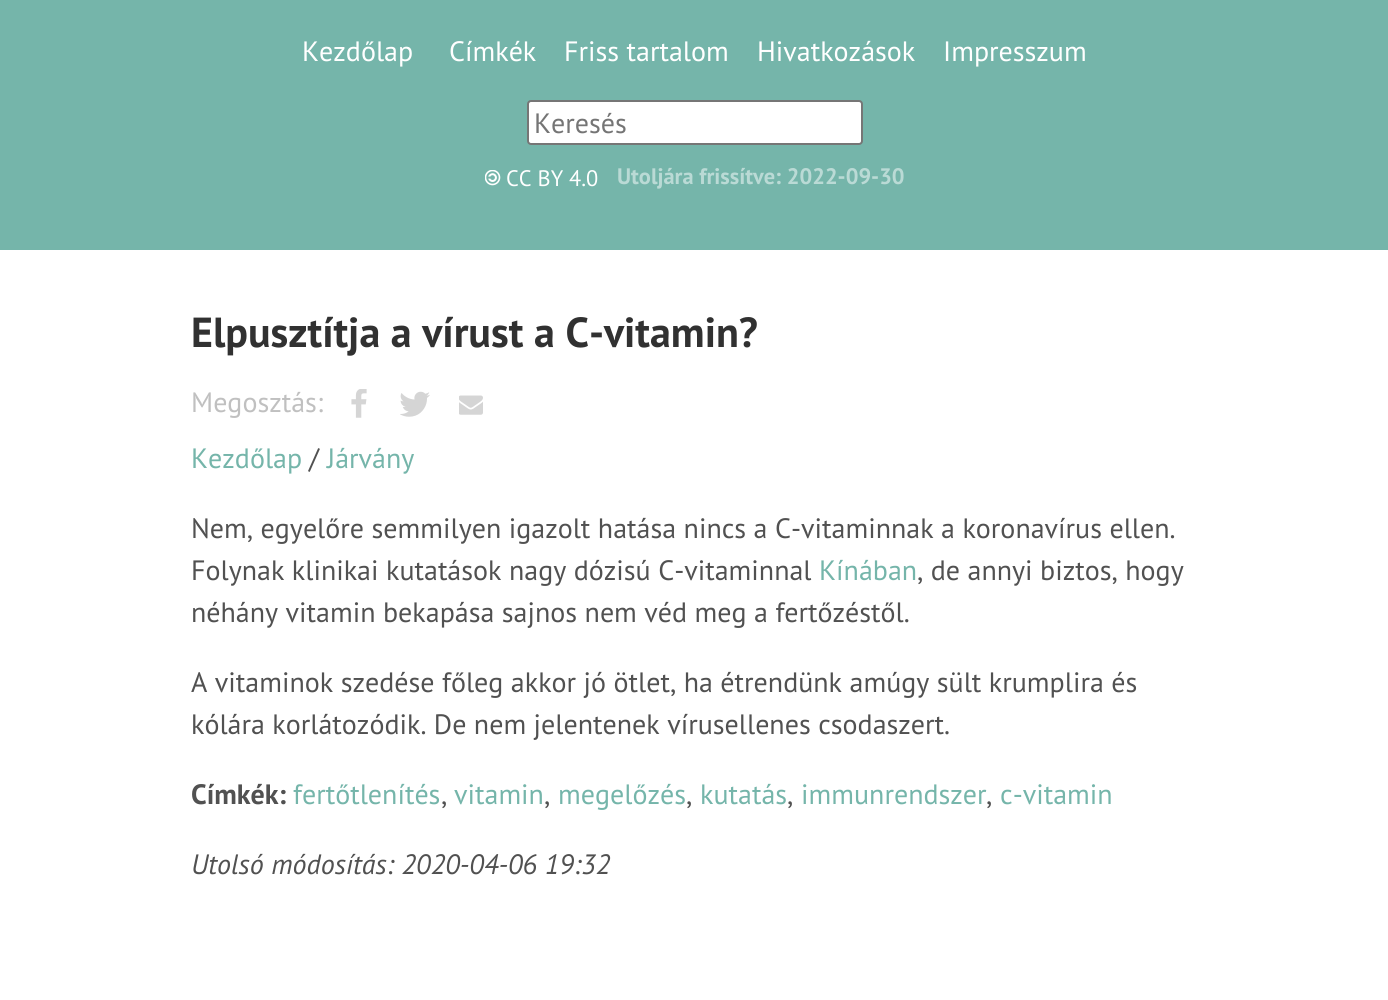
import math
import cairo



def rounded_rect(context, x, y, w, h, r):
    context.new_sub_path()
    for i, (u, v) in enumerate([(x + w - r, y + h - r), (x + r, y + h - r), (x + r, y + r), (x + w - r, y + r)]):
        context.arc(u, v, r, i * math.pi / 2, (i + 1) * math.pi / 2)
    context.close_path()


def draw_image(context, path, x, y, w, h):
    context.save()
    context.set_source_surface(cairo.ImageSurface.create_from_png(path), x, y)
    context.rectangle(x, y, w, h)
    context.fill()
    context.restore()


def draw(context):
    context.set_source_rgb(1, 1, 1)
    context.paint()
    context.set_source_rgb(117 / 255, 181 / 255, 170 / 255)
    context.rectangle(0, 0, 1388, 250)
    context.fill()
    context.set_source_rgb(1, 1, 1)
    rounded_rect(context, 528, 101, 334, 43, 3)
    context.fill_preserve()
    context.set_source_rgb(118 / 255, 118 / 255, 118 / 255)
    context.stroke()
    draw_image(context, "images/1.png", 485, 170, 16, 16)
    draw_image(context, "images/2.png", 351, 389, 16, 29)
    draw_image(context, "images/3.png", 400, 391, 30, 26)
    draw_image(context, "images/4.png", 459, 395, 24, 20)
    context.select_font_face("PT Sans")
    context.set_font_size(28)
    context.set_source_rgb(1, 1, 1)
    context.move_to(302, 61)
    context.show_text("Kezdőlap")
    context.move_to(449, 61)
    context.show_text("Címkék")
    context.move_to(564, 61)
    context.show_text("Friss tartalom")
    context.move_to(757, 61)
    context.show_text("Hivatkozások")
    context.move_to(943, 61)
    context.show_text("Impresszum")
    context.set_source_rgb(117 / 255, 117 / 255, 117 / 255)
    context.move_to(534, 133)
    context.show_text("Keresés")
    context.set_font_size(22.4)
    context.set_source_rgb(1, 1, 1)
    context.move_to(506, 186)
    context.show_text("CC BY 4.0")
    context.select_font_face("PT Sans", cairo.FontSlant.NORMAL, cairo.FontWeight.BOLD)
    context.set_source_rgb(186 / 255, 218 / 255, 213 / 255)
    context.move_to(617, 184)
    context.show_text("Utoljára frissítve: 2022-09-30")
    context.set_font_size(42)
    context.set_source_rgb(49 / 255, 49 / 255, 49 / 255)
    context.move_to(191, 347)
    context.show_text("Elpusztítja a vírust a C-vitamin?")
    context.select_font_face("PT Sans")
    context.set_font_size(28)
    context.set_source_rgb(192 / 255, 192 / 255, 192 / 255)
    context.move_to(191, 412)
    context.show_text("Megosztás:")
    context.set_source_rgb(117 / 255, 181 / 255, 170 / 255)
    context.move_to(191, 468)
    context.show_text("Kezdőlap")
    context.set_source_rgb(81 / 255, 81 / 255, 81 / 255)
    context.move_to(309, 468)
    context.show_text("/")
    context.set_source_rgb(117 / 255, 181 / 255, 170 / 255)
    context.move_to(327, 468)
    context.show_text("Járvány")
    context.set_source_rgb(81 / 255, 81 / 255, 81 / 255)
    context.move_to(191, 538)
    context.show_text("Nem, egyelőre semmilyen igazolt hatása nincs a C-vitaminnak a koronavírus ellen.")
    context.move_to(191, 580)
    context.show_text("Folynak klinikai kutatások nagy dózisú C-vitaminnal")
    context.set_source_rgb(117 / 255, 181 / 255, 170 / 255)
    context.move_to(819, 580)
    context.show_text("Kínában")
    context.set_source_rgb(81 / 255, 81 / 255, 81 / 255)
    context.move_to(917, 580)
    context.show_text(", de annyi biztos, hogy")
    context.move_to(191, 622)
    context.show_text("néhány vitamin bekapása sajnos nem véd meg a fertőzéstől.")
    context.move_to(191, 692)
    context.show_text("A vitaminok szedése főleg akkor jó ötlet, ha étrendünk amúgy sült krumplira és")
    context.move_to(191, 734)
    context.show_text("kólára korlátozódik. De nem jelentenek vírusellenes csodaszert.")
    context.select_font_face("PT Sans", cairo.FontSlant.NORMAL, cairo.FontWeight.BOLD)
    context.move_to(191, 804)
    context.show_text("Címkék:")
    context.select_font_face("PT Sans")
    context.set_source_rgb(117 / 255, 181 / 255, 170 / 255)
    context.move_to(293, 804)
    context.show_text("fertőtlenítés")
    context.set_source_rgb(81 / 255, 81 / 255, 81 / 255)
    context.move_to(441, 804)
    context.show_text(",")
    context.set_source_rgb(117 / 255, 181 / 255, 170 / 255)
    context.move_to(454, 804)
    context.show_text("vitamin")
    context.set_source_rgb(81 / 255, 81 / 255, 81 / 255)
    context.move_to(544, 804)
    context.show_text(",")
    context.set_source_rgb(117 / 255, 181 / 255, 170 / 255)
    context.move_to(558, 804)
    context.show_text("megelőzés")
    context.set_source_rgb(81 / 255, 81 / 255, 81 / 255)
    context.move_to(686, 804)
    context.show_text(",")
    context.set_source_rgb(117 / 255, 181 / 255, 170 / 255)
    context.move_to(700, 804)
    context.show_text("kutatás")
    context.set_source_rgb(81 / 255, 81 / 255, 81 / 255)
    context.move_to(787, 804)
    context.show_text(",")
    context.set_source_rgb(117 / 255, 181 / 255, 170 / 255)
    context.move_to(801, 804)
    context.show_text("immunrendszer")
    context.set_source_rgb(81 / 255, 81 / 255, 81 / 255)
    context.move_to(986, 804)
    context.show_text(",")
    context.set_source_rgb(117 / 255, 181 / 255, 170 / 255)
    context.move_to(1000, 804)
    context.show_text("c-vitamin")
    context.select_font_face("PT Sans", cairo.FontSlant.ITALIC)
    context.set_source_rgb(81 / 255, 81 / 255, 81 / 255)
    context.move_to(191, 874)
    context.show_text("Utolsó módosítás: 2020-04-06 19:32")


surface = cairo.ImageSurface(cairo.Format.RGB24, 1388, 1000)
context = cairo.Context(surface)
options = cairo.FontOptions()
options.set_hint_metrics(cairo.HintMetrics.OFF)
options.set_hint_style(cairo.HintStyle.NONE)
context.set_font_options(options)
context.set_miter_limit(4)
draw(context)
surface.write_to_png("out.png")
